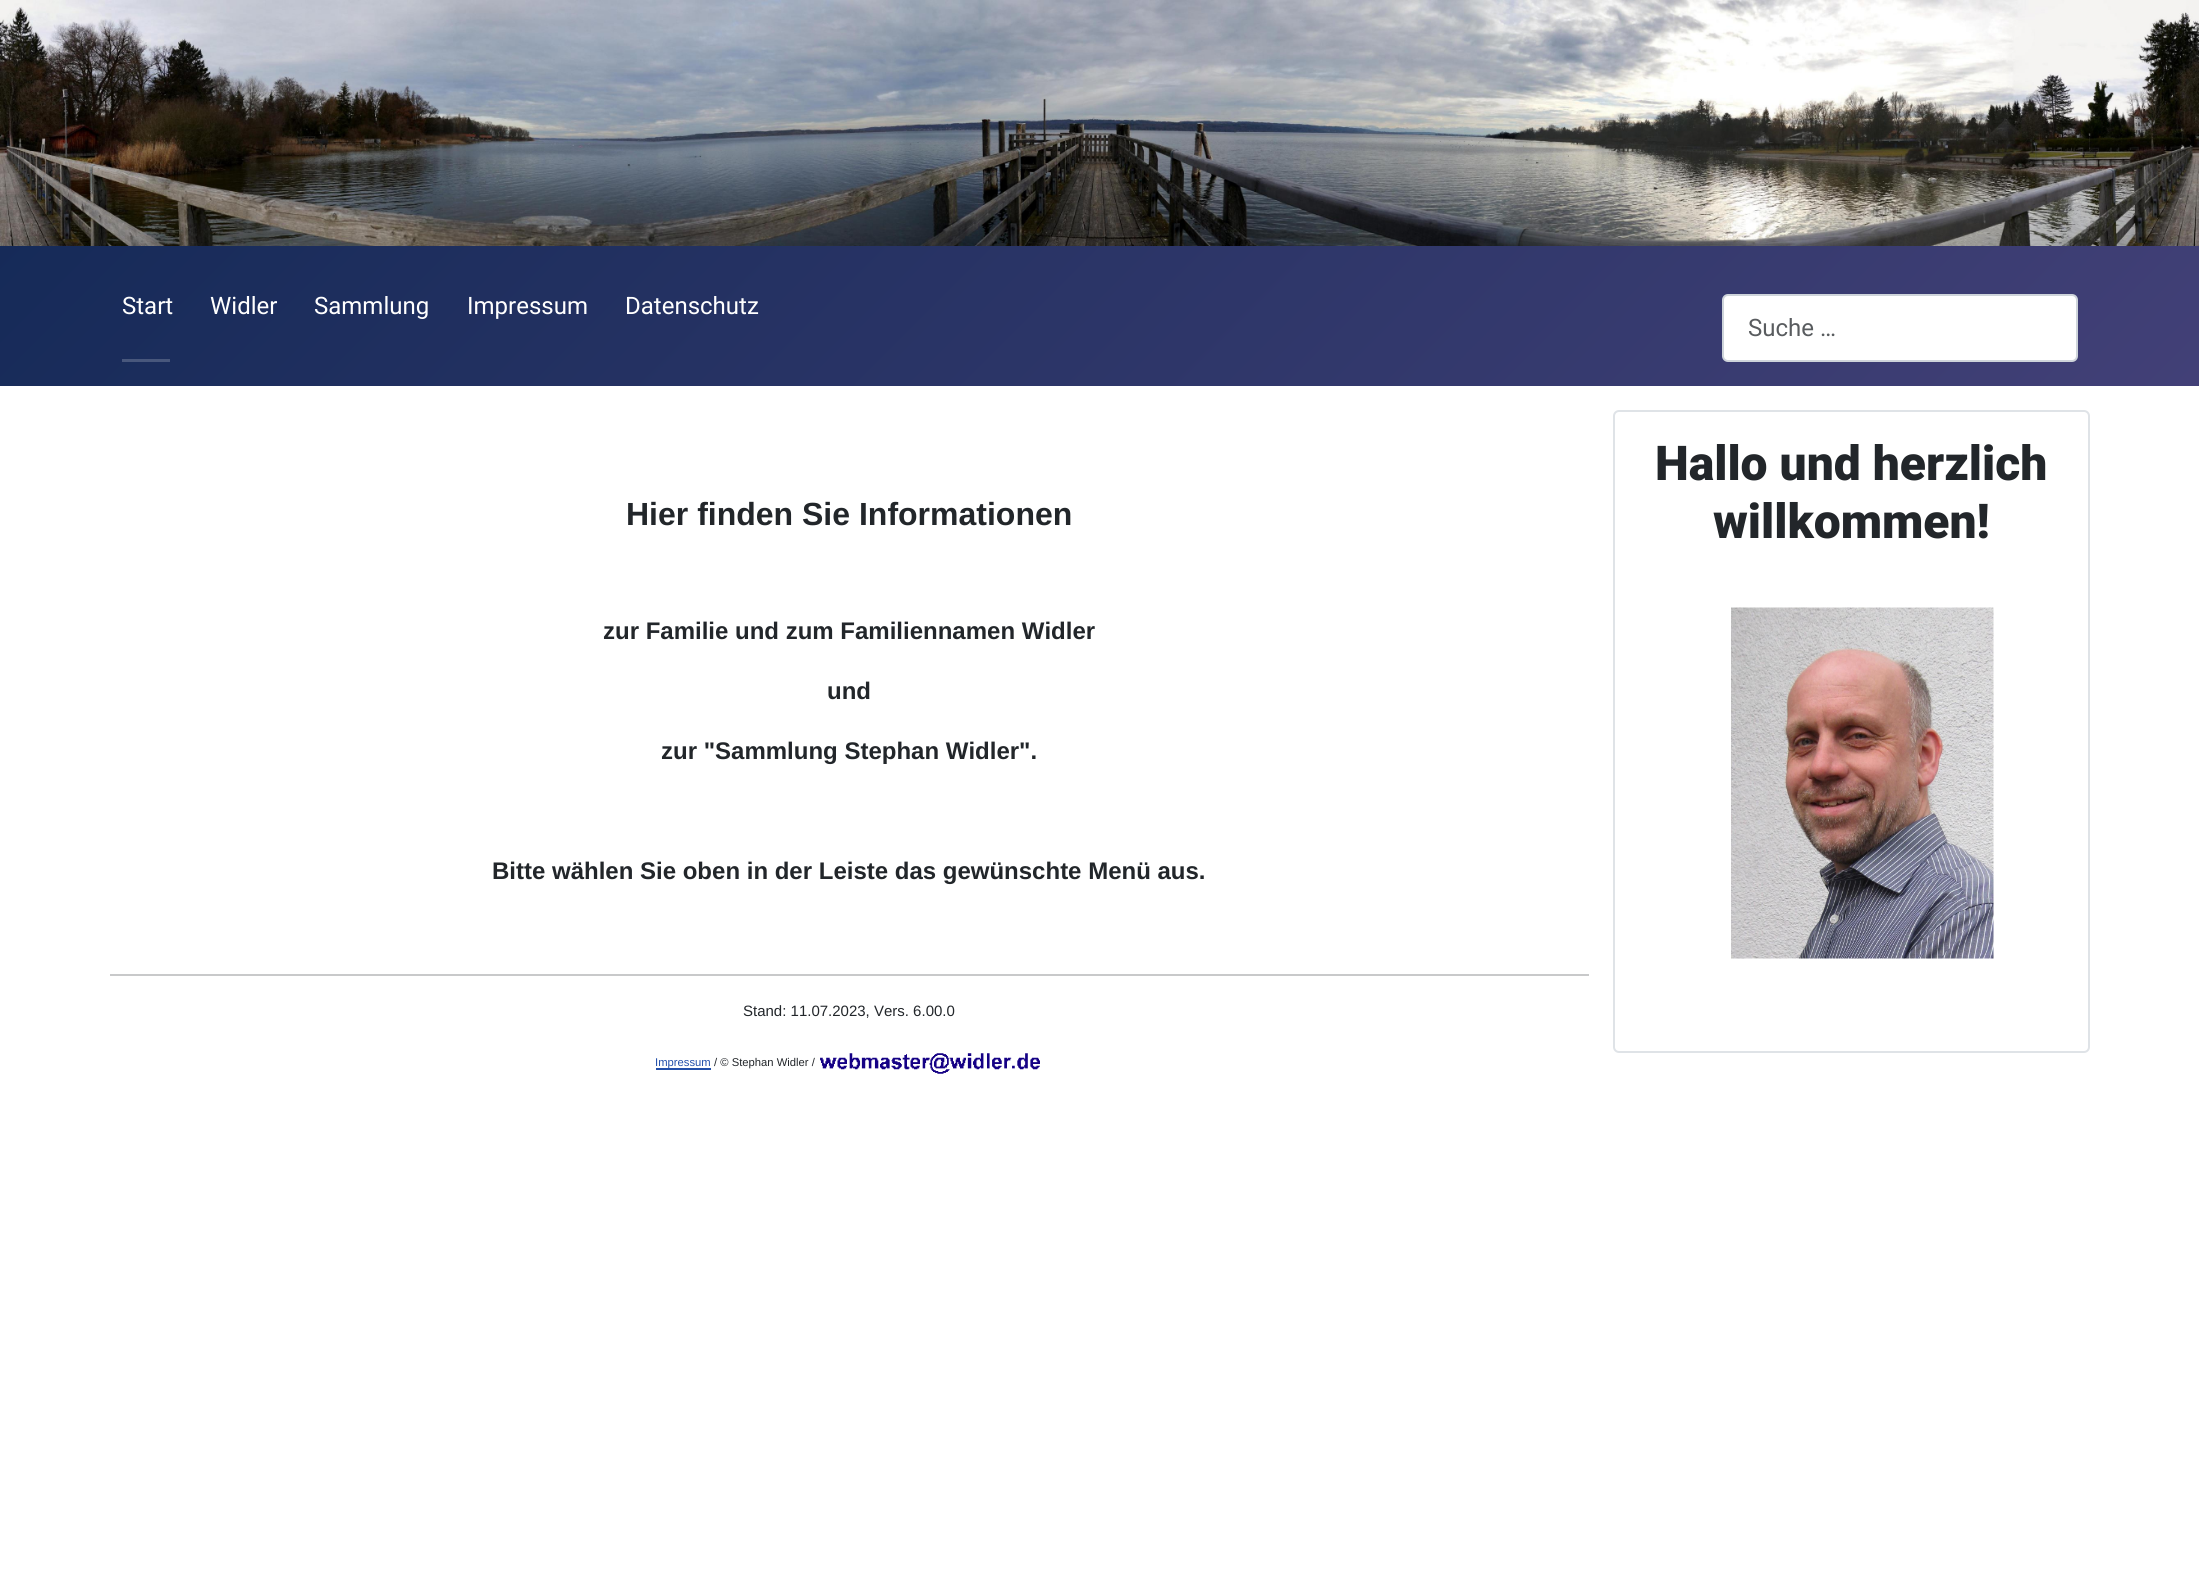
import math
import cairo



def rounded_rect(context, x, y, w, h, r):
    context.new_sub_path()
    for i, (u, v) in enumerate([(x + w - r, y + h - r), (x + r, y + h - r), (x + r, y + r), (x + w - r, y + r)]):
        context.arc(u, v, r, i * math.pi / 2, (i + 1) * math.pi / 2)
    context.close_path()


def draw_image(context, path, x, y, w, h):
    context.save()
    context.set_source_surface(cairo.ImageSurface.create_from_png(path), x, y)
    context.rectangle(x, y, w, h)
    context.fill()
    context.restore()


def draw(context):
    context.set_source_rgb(1, 1, 1)
    context.paint()
    gradient = cairo.LinearGradient(453, -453, 1746, 839)
    gradient.add_color_stop_rgba(0, 17 / 255, 40 / 255, 85 / 255, 1)
    gradient.add_color_stop_rgba(1, 66 / 255, 64 / 255, 119 / 255, 1)
    context.set_source(gradient)
    context.rectangle(0, 246, 2199, 140)
    context.fill()
    draw_image(context, "images/1.png", 0, 0, 2199, 246)
    context.set_source_rgb(72 / 255, 87 / 255, 124 / 255)
    context.rectangle(122, 359, 48, 3)
    context.fill()
    context.set_source_rgb(1, 1, 1)
    rounded_rect(context, 1723, 295, 354, 66, 5)
    context.fill_preserve()
    context.set_source_rgb(206 / 255, 212 / 255, 218 / 255)
    context.stroke()
    rounded_rect(context, 1614, 411, 475, 641, 5)
    context.set_source_rgb(223 / 255, 227 / 255, 231 / 255)
    context.stroke()
    draw_image(context, "images/2.png", 1731, 607, 263, 352)
    context.set_source_rgb(200 / 255, 201 / 255, 202 / 255)
    context.rectangle(110, 974, 1479, 2)
    context.fill()
    context.set_source_rgb(34 / 255, 79 / 255, 170 / 255)
    context.rectangle(656, 1068, 55, 2)
    context.fill()
    draw_image(context, "images/3.png", 820, 1053, 220, 21)
    context.select_font_face("Roboto")
    context.set_font_size(24)
    context.set_source_rgb(1, 1, 1)
    context.move_to(122, 314)
    context.show_text("Start")
    context.move_to(210, 314)
    context.show_text("Widler")
    context.move_to(314, 314)
    context.show_text("Sammlung")
    context.move_to(467, 314)
    context.show_text("Impressum")
    context.move_to(625, 314)
    context.show_text("Datenschutz")
    context.set_source_rgb(89 / 255, 92 / 255, 95 / 255)
    context.move_to(1748, 336)
    context.show_text("Suche …")
    context.select_font_face("Roboto Black")
    context.set_font_size(48)
    context.set_source_rgb(34 / 255, 38 / 255, 42 / 255)
    context.move_to(1655, 480)
    context.show_text("Hallo und herzlich")
    context.move_to(1713, 538)
    context.show_text("willkommen!")
    context.select_font_face("Liberation Sans", cairo.FontSlant.NORMAL, cairo.FontWeight.BOLD)
    context.set_font_size(32)
    context.move_to(626, 525)
    context.show_text("Hier finden Sie Informationen")
    context.set_font_size(24)
    context.move_to(603, 639)
    context.show_text("zur Familie und zum Familiennamen Widler")
    context.move_to(827, 699)
    context.show_text("und")
    context.move_to(661, 759)
    context.show_text("zur \"Sammlung Stephan Widler\".")
    context.move_to(492, 879)
    context.show_text("Bitte wählen Sie oben in der Leiste das gewünschte Menü aus.")
    context.select_font_face("Liberation Sans")
    context.set_font_size(15)
    context.move_to(743, 1016)
    context.show_text("Stand: 11.07.2023, Vers. 6.00.0")
    context.set_font_size(11.25)
    context.set_source_rgb(34 / 255, 79 / 255, 170 / 255)
    context.move_to(655, 1066)
    context.show_text("Impressum")
    context.set_source_rgb(34 / 255, 38 / 255, 42 / 255)
    context.move_to(714, 1066)
    context.show_text("/ © Stephan Widler /")


surface = cairo.ImageSurface(cairo.Format.RGB24, 2199, 1581)
context = cairo.Context(surface)
options = cairo.FontOptions()
options.set_hint_metrics(cairo.HintMetrics.OFF)
options.set_hint_style(cairo.HintStyle.NONE)
context.set_font_options(options)
context.set_miter_limit(4)
draw(context)
surface.write_to_png("out.png")
